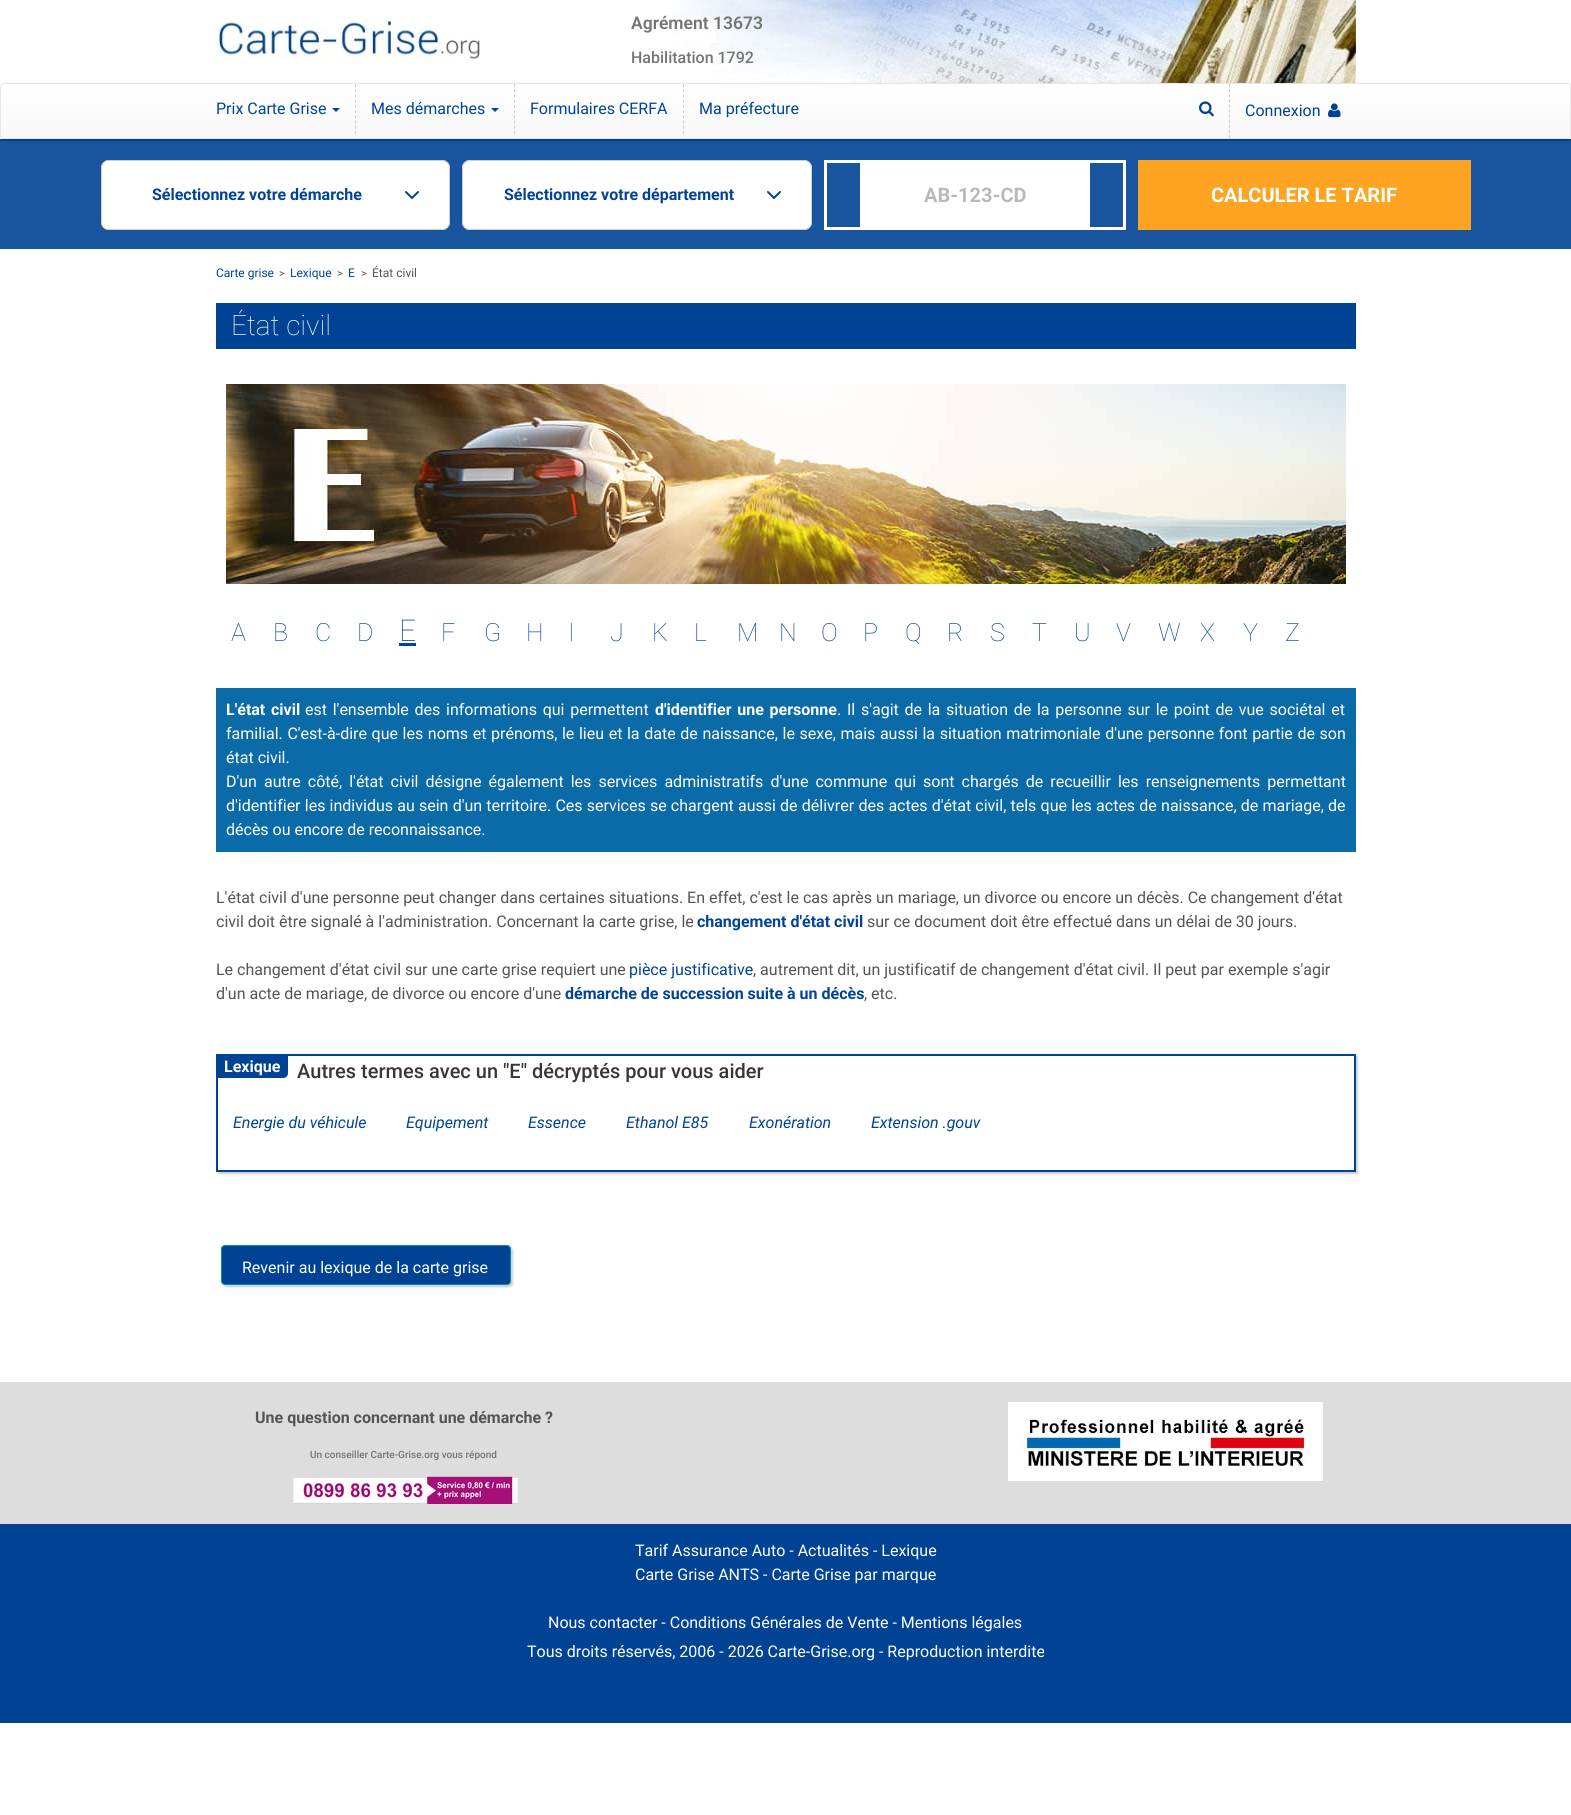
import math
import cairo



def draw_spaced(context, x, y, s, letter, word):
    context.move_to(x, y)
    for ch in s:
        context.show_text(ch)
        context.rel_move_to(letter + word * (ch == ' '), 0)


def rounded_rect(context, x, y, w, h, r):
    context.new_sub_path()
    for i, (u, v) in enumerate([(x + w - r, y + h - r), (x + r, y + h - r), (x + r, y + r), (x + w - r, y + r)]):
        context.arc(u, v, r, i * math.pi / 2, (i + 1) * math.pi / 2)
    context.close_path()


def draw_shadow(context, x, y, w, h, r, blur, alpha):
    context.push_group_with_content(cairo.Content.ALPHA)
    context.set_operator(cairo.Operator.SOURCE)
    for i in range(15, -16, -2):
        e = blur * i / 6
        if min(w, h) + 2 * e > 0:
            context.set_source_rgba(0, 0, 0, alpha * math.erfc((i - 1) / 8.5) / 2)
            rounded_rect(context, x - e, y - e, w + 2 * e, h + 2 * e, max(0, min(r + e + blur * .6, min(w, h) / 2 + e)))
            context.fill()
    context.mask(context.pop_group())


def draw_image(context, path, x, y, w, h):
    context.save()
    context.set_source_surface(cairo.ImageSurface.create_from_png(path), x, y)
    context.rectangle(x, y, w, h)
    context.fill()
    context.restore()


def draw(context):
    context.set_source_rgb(1, 1, 1)
    context.paint()
    draw_image(context, "images/1.png", 672, 0, 684, 83)
    draw_image(context, "images/2.png", 216, 15, 264, 47)
    context.set_source_rgb(0, 66 / 255, 148 / 255)
    context.rectangle(0, 139, 1571, 2)
    context.fill()
    context.set_source_rgb(25 / 255, 85 / 255, 158 / 255)
    context.rectangle(0, 141, 1571, 108)
    context.fill()
    context.set_source_rgb(0, 0, 0)
    draw_shadow(context, 0, 84, 1571, 56, 4, 2.5, 0.07)
    context.save()
    rounded_rect(context, 0, 83, 1571, 56, 4)
    context.clip()
    gradient = cairo.LinearGradient(786, 84, 786, 138)
    gradient.add_color_stop_rgba(0, 1, 1, 1, 1)
    gradient.add_color_stop_rgba(1, 248 / 255, 248 / 255, 248 / 255, 1)
    context.set_source(gradient)
    context.rectangle(0, 84, 1571, 54)
    context.fill()
    context.restore()
    rounded_rect(context, 0.5, 83.5, 1570, 55, 3.5)
    context.set_source_rgb(231 / 255, 231 / 255, 231 / 255)
    context.set_line_width(1)
    context.stroke()
    context.set_source_rgb(0, 66 / 255, 148 / 255)
    context.new_path()
    context.move_to(332, 108)
    context.line_to(340, 108)
    context.line_to(336, 112)
    context.close_path()
    context.fill()
    context.new_path()
    context.move_to(355.5, 84)
    context.line_to(355.5, 134)
    context.set_source_rgb(204 / 255, 204 / 255, 204 / 255)
    context.set_dash([3, 2.22])
    context.stroke()
    context.set_source_rgb(0, 66 / 255, 148 / 255)
    context.new_path()
    context.move_to(491, 108)
    context.line_to(499, 108)
    context.line_to(495, 112)
    context.close_path()
    context.fill()
    context.new_path()
    context.move_to(514.5, 84)
    context.line_to(514.5, 134)
    context.set_source_rgb(204 / 255, 204 / 255, 204 / 255)
    context.stroke()
    context.new_path()
    context.move_to(683.5, 84)
    context.line_to(683.5, 134)
    context.stroke()
    draw_image(context, "images/3.png", 1199, 101, 15, 16)
    context.new_path()
    context.move_to(1229.5, 84)
    context.line_to(1229.5, 138)
    context.set_dash([3, 2.1])
    context.stroke()
    draw_image(context, "images/4.png", 1328, 103, 13, 15)
    context.set_source_rgb(1, 1, 1)
    rounded_rect(context, 101, 160, 349, 70, 8)
    context.fill()
    context.new_path()
    context.move_to(406, 192)
    context.line_to(412, 198)
    context.line_to(418, 192)
    context.set_source_rgb(0, 67 / 255, 153 / 255)
    context.set_line_width(2)
    context.set_line_cap(cairo.LineCap.ROUND)
    context.set_line_join(cairo.LineJoin.ROUND)
    context.set_dash([])
    context.stroke()
    rounded_rect(context, 101.5, 160.5, 348, 69, 7.5)
    context.set_source_rgb(204 / 255, 204 / 255, 204 / 255)
    context.set_line_width(1)
    context.set_line_cap(cairo.LineCap.BUTT)
    context.set_line_join(cairo.LineJoin.MITER)
    context.stroke()
    context.set_source_rgb(1, 1, 1)
    rounded_rect(context, 462, 160, 350, 70, 8)
    context.fill()
    context.new_path()
    context.move_to(768, 192)
    context.line_to(774, 198)
    context.line_to(780, 192)
    context.set_source_rgb(0, 67 / 255, 153 / 255)
    context.set_line_width(2)
    context.set_line_cap(cairo.LineCap.ROUND)
    context.set_line_join(cairo.LineJoin.ROUND)
    context.stroke()
    rounded_rect(context, 462.5, 160.5, 349, 69, 7.5)
    context.set_source_rgb(204 / 255, 204 / 255, 204 / 255)
    context.set_line_width(1)
    context.set_line_cap(cairo.LineCap.BUTT)
    context.set_line_join(cairo.LineJoin.MITER)
    context.stroke()
    context.rectangle(825.5, 161.5, 299, 67)
    context.set_source_rgb(1, 1, 1)
    context.set_line_width(3)
    context.stroke()
    context.rectangle(860, 163, 230, 64)
    context.fill()
    context.set_source_rgb(1, 163 / 255, 35 / 255)
    context.rectangle(1138, 160, 333, 70)
    context.fill()
    context.set_source_rgb(0, 66 / 255, 148 / 255)
    context.rectangle(216, 303, 1140, 46)
    context.fill()
    draw_image(context, "images/5.png", 226, 384, 1120, 200)
    context.rectangle(399, 643, 17, 3)
    context.fill()
    context.set_source_rgb(11 / 255, 107 / 255, 169 / 255)
    context.rectangle(216, 688, 1140, 164)
    context.fill()
    context.save()
    context.set_fill_rule(cairo.FillRule.EVEN_ODD)
    context.new_path()
    context.move_to(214, 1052)
    context.line_to(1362, 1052)
    context.line_to(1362, 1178)
    context.line_to(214, 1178)
    context.close_path()
    context.move_to(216, 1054)
    context.line_to(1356, 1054)
    context.line_to(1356, 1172)
    context.line_to(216, 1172)
    context.close_path()
    context.clip()
    context.set_source_rgb(0, 0, 0)
    draw_shadow(context, 218, 1056, 1140, 118, 0, 1, 0.2)
    context.restore()
    context.rectangle(217, 1055, 1138, 116)
    context.set_source_rgb(0, 66 / 255, 148 / 255)
    context.set_line_width(2)
    context.stroke()
    context.new_path()
    context.move_to(218, 1056)
    context.line_to(288, 1056)
    context.line_to(288, 1073)
    context.curve_to(288, 1076, 286, 1078, 283, 1078)
    context.line_to(218, 1078)
    context.close_path()
    context.fill()
    context.set_source_rgb(0, 0, 0)
    draw_shadow(context, 223, 1247, 290, 40, 4, 1, 0.2)
    context.set_source_rgb(0, 66 / 255, 148 / 255)
    rounded_rect(context, 221.5, 1245.5, 289, 39, 3.5)
    context.fill_preserve()
    context.set_source_rgb(1 / 255, 141 / 255, 196 / 255)
    context.set_line_width(1)
    context.stroke()
    context.set_source_rgb(0, 66 / 255, 148 / 255)
    context.rectangle(0, 1524, 1571, 199)
    context.fill()
    context.set_source_rgb(221 / 255, 221 / 255, 221 / 255)
    context.rectangle(0, 1382, 1571, 142)
    context.fill()
    draw_image(context, "images/6.png", 293, 1476, 225, 28)
    draw_image(context, "images/7.png", 1008, 1402, 315, 79)
    context.select_font_face("Roboto SemiBold")
    context.set_font_size(17.5)
    context.set_source_rgb(116 / 255, 116 / 255, 116 / 255)
    context.move_to(631, 29)
    context.show_text("Agrément 13673")
    context.select_font_face("Roboto Medium")
    context.set_font_size(16)
    context.move_to(631, 63)
    context.show_text("Habilitation 1792")
    context.select_font_face("Roboto")
    context.set_source_rgb(0, 67 / 255, 153 / 255)
    context.move_to(216, 114)
    context.show_text("Prix Carte Grise")
    context.move_to(371, 114)
    context.show_text("Mes démarches")
    context.move_to(530, 114)
    context.show_text("Formulaires CERFA")
    context.move_to(699, 114)
    context.show_text("Ma préfecture")
    context.move_to(1245, 116)
    context.show_text("Connexion")
    context.select_font_face("Roboto", cairo.FontSlant.NORMAL, cairo.FontWeight.BOLD)
    context.move_to(152, 200)
    context.show_text("Sélectionnez votre démarche")
    context.move_to(504, 200)
    context.show_text("Sélectionnez votre département")
    context.set_font_size(20)
    context.set_source_rgb(185 / 255, 185 / 255, 185 / 255)
    context.move_to(924, 202)
    context.show_text("AB-123-CD")
    context.set_source_rgb(1, 1, 1)
    context.move_to(1211, 202)
    context.show_text("CALCULER LE TARIF")
    context.select_font_face("Roboto")
    context.set_font_size(12)
    context.set_source_rgb(0, 67 / 255, 153 / 255)
    context.move_to(216, 277)
    context.show_text("Carte grise")
    context.set_font_size(11)
    context.set_source_rgb(84 / 255, 84 / 255, 84 / 255)
    context.move_to(279, 277)
    context.show_text(">")
    context.set_font_size(12)
    context.set_source_rgb(0, 67 / 255, 153 / 255)
    context.move_to(290, 277)
    context.show_text("Lexique")
    context.set_font_size(11)
    context.set_source_rgb(84 / 255, 84 / 255, 84 / 255)
    context.move_to(337, 277)
    context.show_text(">")
    context.set_font_size(12)
    context.set_source_rgb(0, 67 / 255, 153 / 255)
    context.move_to(348, 277)
    context.show_text("E")
    context.set_font_size(11)
    context.set_source_rgb(84 / 255, 84 / 255, 84 / 255)
    context.move_to(361, 277)
    context.show_text(">")
    context.set_font_size(12)
    context.move_to(372, 277)
    context.show_text("État civil")
    context.select_font_face("Roboto Thin")
    context.set_font_size(28)
    context.set_source_rgb(1, 1, 1)
    context.move_to(231, 335)
    context.show_text("État civil")
    context.set_font_size(25)
    context.set_source_rgb(0, 67 / 255, 153 / 255)
    context.move_to(231, 641)
    context.show_text("A")
    context.move_to(273, 641)
    context.show_text("B")
    context.move_to(315, 641)
    context.show_text("C")
    context.move_to(357, 641)
    context.show_text("D")
    context.set_font_size(30)
    context.move_to(399, 641)
    context.show_text("E")
    context.set_font_size(25)
    context.move_to(441, 641)
    context.show_text("F")
    context.move_to(484, 641)
    context.show_text("G")
    context.move_to(526, 641)
    context.show_text("H")
    context.move_to(568, 641)
    context.show_text("I")
    context.move_to(610, 641)
    context.show_text("J")
    context.move_to(652, 641)
    context.show_text("K")
    context.move_to(694, 641)
    context.show_text("L")
    context.move_to(737, 641)
    context.show_text("M")
    context.move_to(779, 641)
    context.show_text("N")
    context.move_to(821, 641)
    context.show_text("O")
    context.move_to(863, 641)
    context.show_text("P")
    context.move_to(905, 641)
    context.show_text("Q")
    context.move_to(947, 641)
    context.show_text("R")
    context.move_to(990, 641)
    context.show_text("S")
    context.move_to(1032, 641)
    context.show_text("T")
    context.move_to(1074, 641)
    context.show_text("U")
    context.move_to(1116, 641)
    context.show_text("V")
    context.move_to(1158, 641)
    context.show_text("W")
    context.move_to(1200, 641)
    context.show_text("X")
    context.move_to(1243, 641)
    context.show_text("Y")
    context.move_to(1285, 641)
    context.show_text("Z")
    context.select_font_face("Roboto", cairo.FontSlant.NORMAL, cairo.FontWeight.BOLD)
    context.set_font_size(16)
    context.set_source_rgb(1, 1, 1)
    draw_spaced(context, 226, 715, "L'état civil", 0, 1.75)
    context.select_font_face("Roboto")
    draw_spaced(context, 305, 715, "est l'ensemble des informations qui permettent", 0, 1.75)
    context.select_font_face("Roboto", cairo.FontSlant.NORMAL, cairo.FontWeight.BOLD)
    draw_spaced(context, 655, 715, "d'identifier une personne", 0, 1.75)
    context.select_font_face("Roboto")
    draw_spaced(context, 837, 715, ". Il s'agit de la situation de la personne sur le point de vue sociétal et", 0, 1.75)
    draw_spaced(context, 226, 739, "familial. C'est-à-dire que les noms et prénoms, le lieu et la date de naissance, le sexe, mais aussi la situation matrimoniale d'une personne font partie de son", 0, 0.65)
    context.move_to(226, 763)
    context.show_text("état civil.")
    draw_spaced(context, 226, 787, "D'un autre côté, l'état civil désigne également les services administratifs d'une commune qui sont chargés de recueillir les renseignements permettant", 0, 3.1)
    draw_spaced(context, 226, 811, "d'identifier les individus au sein d'un territoire. Ces services se chargent aussi de délivrer des actes d'état civil, tels que les actes de naissance, de mariage, de", 0, 0.25)
    context.move_to(226, 835)
    context.show_text("décès ou encore de reconnaissance.")
    context.set_source_rgb(84 / 255, 84 / 255, 84 / 255)
    context.move_to(216, 903)
    context.show_text("L'état civil d'une personne peut changer dans certaines situations. En effet, c'est le cas après un mariage, un divorce ou encore un décès. Ce changement d'état")
    context.move_to(216, 927)
    context.show_text("civil doit être signalé à l'administration. Concernant la carte grise, le")
    context.select_font_face("Roboto", cairo.FontSlant.NORMAL, cairo.FontWeight.BOLD)
    context.set_source_rgb(0, 67 / 255, 153 / 255)
    context.move_to(697, 927)
    context.show_text("changement d'état civil")
    context.select_font_face("Roboto")
    context.set_source_rgb(84 / 255, 84 / 255, 84 / 255)
    context.move_to(867, 927)
    context.show_text("sur ce document doit être effectué dans un délai de 30 jours.")
    context.move_to(216, 975)
    context.show_text("Le changement d'état civil sur une carte grise requiert une")
    context.set_source_rgb(0, 67 / 255, 153 / 255)
    context.move_to(629, 975)
    context.show_text("pièce justificative")
    context.set_source_rgb(84 / 255, 84 / 255, 84 / 255)
    context.move_to(753, 975)
    context.show_text(", autrement dit, un justificatif de changement d'état civil. Il peut par exemple s'agir")
    context.move_to(216, 999)
    context.show_text("d'un acte de mariage, de divorce ou encore d'une")
    context.select_font_face("Roboto", cairo.FontSlant.NORMAL, cairo.FontWeight.BOLD)
    context.set_source_rgb(0, 67 / 255, 153 / 255)
    context.move_to(565, 999)
    context.show_text("démarche de succession suite à un décès")
    context.select_font_face("Roboto")
    context.set_source_rgb(84 / 255, 84 / 255, 84 / 255)
    context.move_to(864, 999)
    context.show_text(", etc.")
    context.select_font_face("Roboto", cairo.FontSlant.NORMAL, cairo.FontWeight.BOLD)
    context.set_source_rgb(1, 1, 1)
    context.move_to(224, 1072)
    context.show_text("Lexique")
    context.select_font_face("Roboto Medium")
    context.set_font_size(20)
    context.set_source_rgb(55 / 255, 55 / 255, 55 / 255)
    context.move_to(297, 1078)
    context.show_text("Autres termes avec un \"E\" décryptés pour vous aider")
    context.select_font_face("Roboto", cairo.FontSlant.ITALIC)
    context.set_font_size(16)
    context.set_source_rgb(0, 67 / 255, 153 / 255)
    context.move_to(233, 1128)
    context.show_text("Energie du véhicule")
    context.move_to(406, 1128)
    context.show_text("Equipement")
    context.move_to(528, 1128)
    context.show_text("Essence")
    context.move_to(626, 1128)
    context.show_text("Ethanol E85")
    context.move_to(749, 1128)
    context.show_text("Exonération")
    context.move_to(871, 1128)
    context.show_text("Extension .gouv")
    context.select_font_face("Roboto")
    context.set_source_rgb(1, 1, 1)
    context.move_to(242, 1273)
    context.show_text("Revenir au lexique de la carte grise")
    context.select_font_face("Roboto", cairo.FontSlant.NORMAL, cairo.FontWeight.BOLD)
    context.set_source_rgb(84 / 255, 84 / 255, 84 / 255)
    context.move_to(255, 1423)
    context.show_text("Une question concernant une démarche ?")
    context.select_font_face("Roboto Medium")
    context.set_font_size(10)
    context.set_source_rgb(116 / 255, 116 / 255, 116 / 255)
    context.move_to(310, 1458)
    context.show_text("Un conseiller Carte-Grise.org vous répond")
    context.select_font_face("Roboto")
    context.set_font_size(16)
    context.set_source_rgb(1, 1, 1)
    context.move_to(635, 1556)
    context.show_text("Tarif Assurance Auto - Actualités - Lexique")
    context.move_to(635, 1580)
    context.show_text("Carte Grise ANTS - Carte Grise par marque")
    context.move_to(548, 1628)
    context.show_text("Nous contacter - Conditions Générales de Vente - Mentions légales")
    context.move_to(527, 1657)
    context.show_text("Tous droits réservés, 2006 - 2026 Carte-Grise.org - Reproduction interdite")


surface = cairo.ImageSurface(cairo.Format.RGB24, 1571, 1815)
context = cairo.Context(surface)
options = cairo.FontOptions()
options.set_hint_metrics(cairo.HintMetrics.OFF)
options.set_hint_style(cairo.HintStyle.NONE)
context.set_font_options(options)
context.set_miter_limit(4)
draw(context)
surface.write_to_png("out.png")
